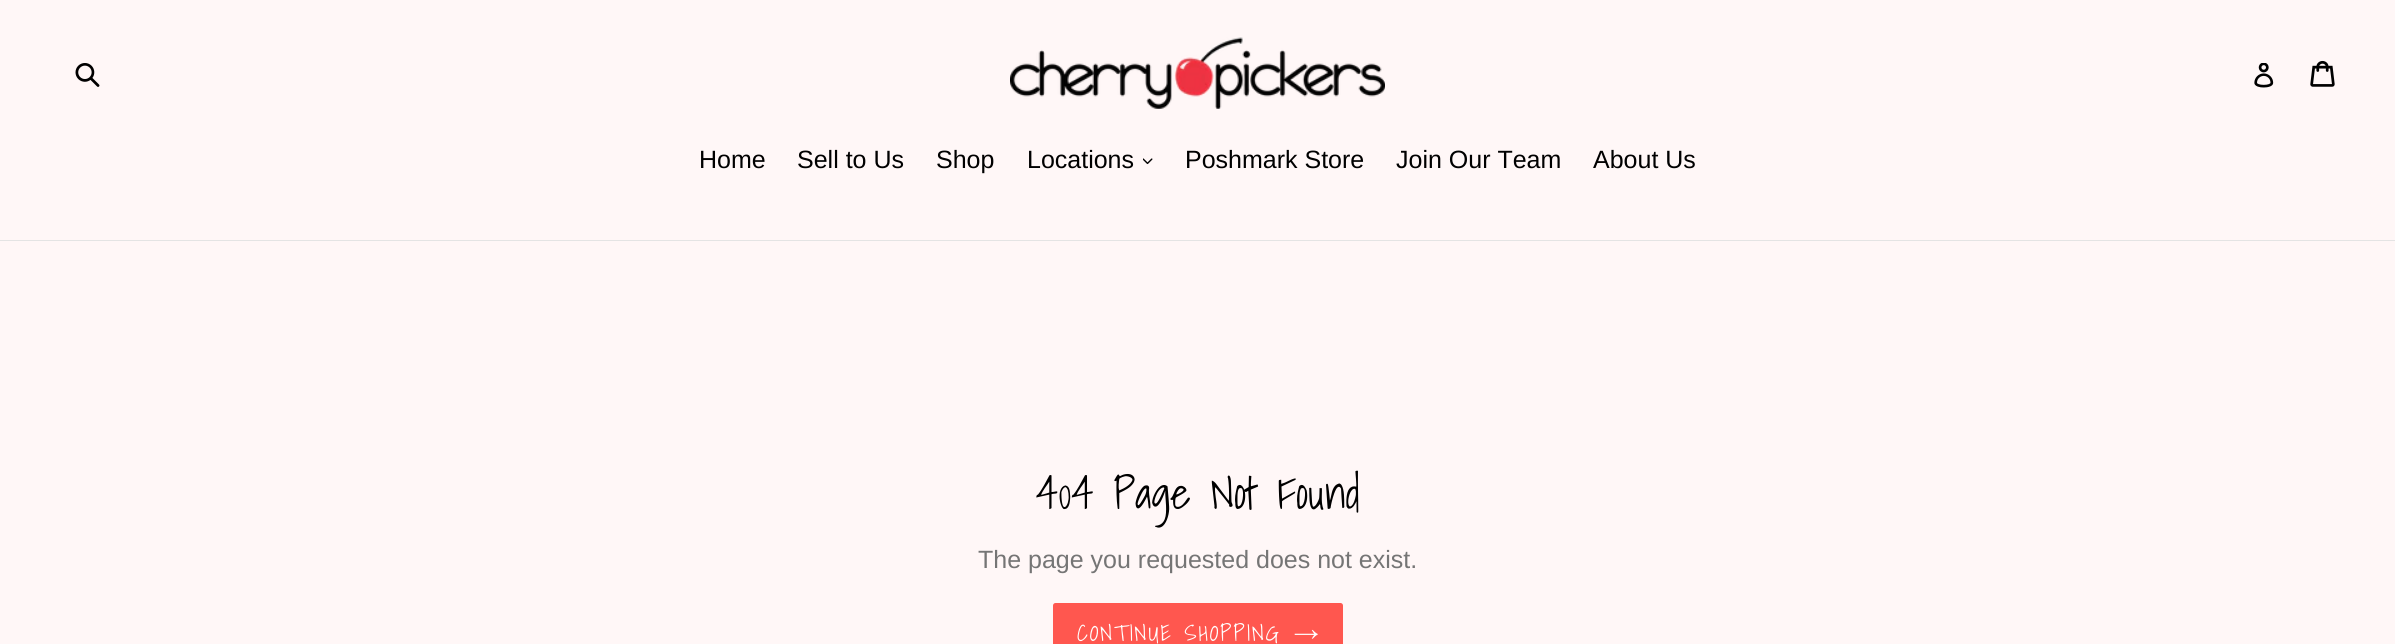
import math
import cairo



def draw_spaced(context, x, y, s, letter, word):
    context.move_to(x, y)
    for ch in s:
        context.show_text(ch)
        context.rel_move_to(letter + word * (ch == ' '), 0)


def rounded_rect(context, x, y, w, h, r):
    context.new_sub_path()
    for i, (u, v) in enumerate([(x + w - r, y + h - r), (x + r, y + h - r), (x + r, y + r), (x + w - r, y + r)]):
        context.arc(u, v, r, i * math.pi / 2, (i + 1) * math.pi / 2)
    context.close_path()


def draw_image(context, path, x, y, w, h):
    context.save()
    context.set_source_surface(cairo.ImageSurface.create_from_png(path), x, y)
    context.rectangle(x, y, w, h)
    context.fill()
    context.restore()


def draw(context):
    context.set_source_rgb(1, 247 / 255, 247 / 255)
    context.paint()
    draw_image(context, "images/1.png", 75, 63, 25, 24)
    draw_image(context, "images/2.png", 1010, 37, 375, 72)
    draw_image(context, "images/3.png", 2254, 63, 20, 25)
    draw_image(context, "images/4.png", 2310, 60, 25, 27)
    context.set_source_rgb(228 / 255, 228 / 255, 228 / 255)
    context.rectangle(0, 240, 2395, 1)
    context.fill()
    draw_image(context, "images/5.png", 1143, 158, 10, 7)
    context.set_source_rgb(1, 87 / 255, 79 / 255)
    rounded_rect(context, 1053, 603, 290, 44, 2.5)
    context.fill()
    draw_image(context, "images/6.png", 1294, 629, 24, 10)
    context.select_font_face("Liberation Sans")
    context.set_font_size(25)
    context.set_source_rgb(0, 0, 0)
    context.move_to(699, 168)
    context.show_text("Home")
    context.move_to(797, 168)
    context.show_text("Sell to Us")
    context.move_to(936, 168)
    context.show_text("Shop")
    context.move_to(1027, 168)
    context.show_text("Locations")
    context.move_to(1185, 168)
    context.show_text("Poshmark Store")
    context.move_to(1396, 168)
    context.show_text("Join Our Team")
    context.move_to(1593, 168)
    context.show_text("About Us")
    context.select_font_face("Shadows Into Light Light")
    context.set_font_size(43.75)
    context.move_to(1036, 509)
    context.show_text("404 Page Not Found")
    context.select_font_face("Liberation Sans")
    context.set_font_size(25)
    context.set_source_rgb(117 / 255, 117 / 255, 117 / 255)
    context.move_to(978, 568)
    context.show_text("The page you requested does not exist.")
    context.select_font_face("Shadows Into Light Light")
    context.set_font_size(22.5)
    context.set_source_rgb(1, 1, 1)
    draw_spaced(context, 1077, 641, "CONTINUE SHOPPING", 1.75, 0)


surface = cairo.ImageSurface(cairo.Format.RGB24, 2395, 644)
context = cairo.Context(surface)
options = cairo.FontOptions()
options.set_hint_metrics(cairo.HintMetrics.OFF)
options.set_hint_style(cairo.HintStyle.NONE)
context.set_font_options(options)
context.set_miter_limit(4)
draw(context)
surface.write_to_png("out.png")
